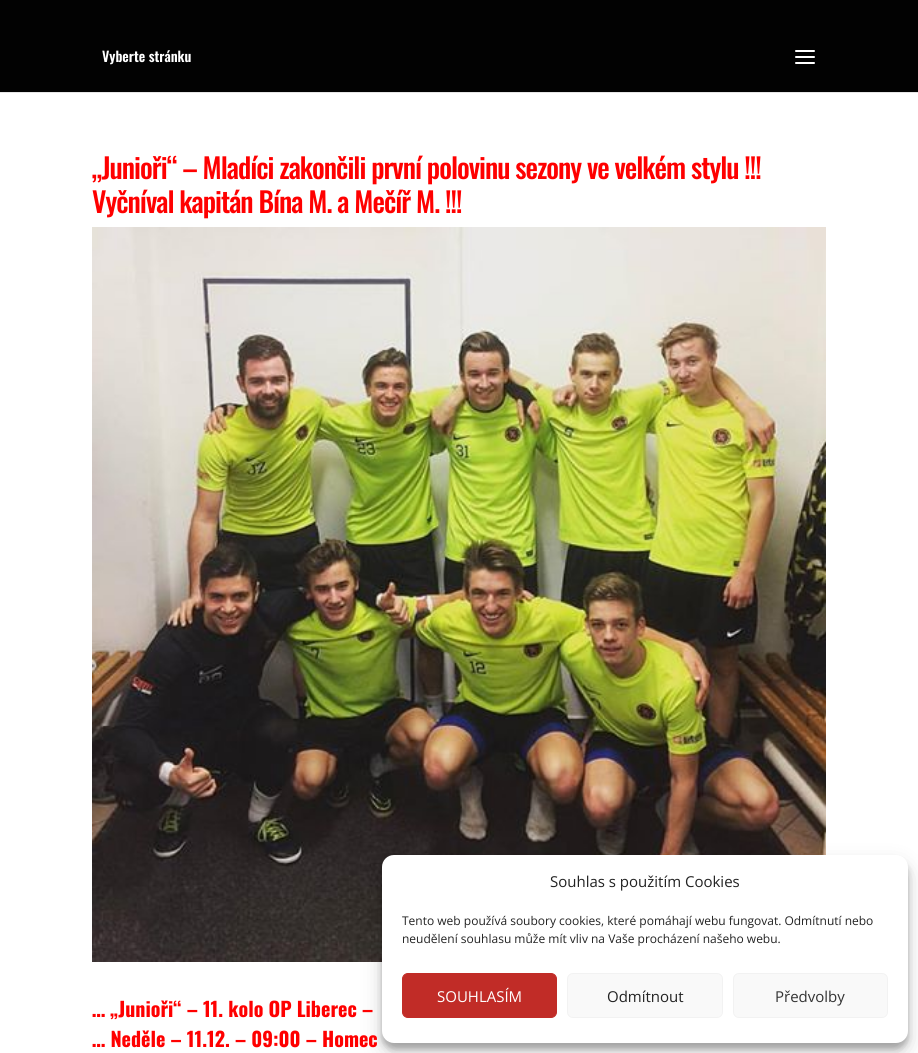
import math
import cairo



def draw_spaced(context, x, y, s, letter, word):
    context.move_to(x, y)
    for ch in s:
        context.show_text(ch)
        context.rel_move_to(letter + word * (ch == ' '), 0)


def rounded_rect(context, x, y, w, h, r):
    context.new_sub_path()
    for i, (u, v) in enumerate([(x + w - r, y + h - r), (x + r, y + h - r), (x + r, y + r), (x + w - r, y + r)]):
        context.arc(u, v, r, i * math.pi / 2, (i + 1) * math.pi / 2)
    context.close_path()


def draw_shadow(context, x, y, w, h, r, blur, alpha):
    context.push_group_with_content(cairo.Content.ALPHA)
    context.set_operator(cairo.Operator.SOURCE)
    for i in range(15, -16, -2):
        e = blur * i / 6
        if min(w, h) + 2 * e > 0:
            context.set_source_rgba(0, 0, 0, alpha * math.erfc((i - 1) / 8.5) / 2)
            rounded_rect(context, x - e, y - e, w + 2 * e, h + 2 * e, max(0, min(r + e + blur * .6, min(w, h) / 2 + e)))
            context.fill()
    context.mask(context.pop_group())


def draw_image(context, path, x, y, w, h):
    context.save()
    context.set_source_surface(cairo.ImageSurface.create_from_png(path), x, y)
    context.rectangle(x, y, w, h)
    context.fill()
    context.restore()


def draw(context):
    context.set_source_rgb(1, 1, 1)
    context.paint()
    context.set_source_rgb(230 / 255, 230 / 255, 230 / 255)
    context.rectangle(0, 92, 918, 1)
    context.fill()
    context.set_source_rgb(2 / 255, 2 / 255, 2 / 255)
    context.rectangle(0, 0, 918, 92)
    context.fill()
    draw_image(context, "images/1.png", 795, 50, 20, 14)
    draw_image(context, "images/2.png", 92, 227, 734, 735)
    context.set_source_rgb(0, 0, 0)
    draw_shadow(context, 382, 861, 526, 188, 12, 3, 0.23)
    draw_shadow(context, 382, 865, 526, 188, 12, 10, 0.19)
    context.set_source_rgb(1, 1, 1)
    rounded_rect(context, 382, 855, 526, 188, 12)
    context.fill()
    context.set_source_rgb(193 / 255, 44 / 255, 39 / 255)
    rounded_rect(context, 402.5, 973.5, 154, 44, 5.5)
    context.fill_preserve()
    context.set_line_width(1)
    context.stroke()
    context.set_source_rgb(249 / 255, 249 / 255, 249 / 255)
    rounded_rect(context, 567.5, 973.5, 155, 44, 5.5)
    context.fill_preserve()
    context.set_source_rgb(242 / 255, 242 / 255, 242 / 255)
    context.stroke()
    context.set_source_rgb(249 / 255, 249 / 255, 249 / 255)
    rounded_rect(context, 733.5, 973.5, 154, 44, 5.5)
    context.fill_preserve()
    context.set_source_rgb(242 / 255, 242 / 255, 242 / 255)
    context.stroke()
    context.select_font_face("Oswald SemiBold")
    context.set_font_size(14)
    context.set_source_rgb(1, 1, 1)
    context.move_to(102, 62)
    context.show_text("Vyberte stránku")
    context.select_font_face("Oswald Medium")
    context.set_font_size(28)
    context.set_source_rgb(1, 0, 0)
    draw_spaced(context, 92, 179, "„Junioři“ – Mladíci zakončili první polovinu sezony ve velkém stylu !!!", -1, 0)
    draw_spaced(context, 92, 213, "Vyčníval kapitán Bína M. a Mečíř M. !!!", -1, 0)
    context.select_font_face("Oswald", cairo.FontSlant.NORMAL, cairo.FontWeight.BOLD)
    context.set_font_size(20)
    context.move_to(92, 1017)
    context.show_text("… „Junioři“ – 11. kolo OP Liberec –")
    context.move_to(92, 1047)
    context.show_text("… Neděle – 11.12. – 09:00 – Homec")
    context.select_font_face("Open Sans")
    context.set_font_size(15)
    context.set_source_rgb(34 / 255, 34 / 255, 34 / 255)
    context.move_to(550, 887)
    context.show_text("Souhlas s použitím Cookies")
    context.set_font_size(12)
    context.move_to(402, 925)
    context.show_text("Tento web používá soubory cookies, které pomáhají webu fungovat. Odmítnutí nebo")
    context.move_to(402, 943)
    context.show_text("neudělení souhlasu může mít vliv na Vaše procházení našeho webu.")
    context.set_font_size(15)
    context.set_source_rgb(1, 1, 1)
    context.move_to(437, 1002)
    context.show_text("SOUHLASÍM")
    context.set_source_rgb(34 / 255, 34 / 255, 34 / 255)
    context.move_to(607, 1002)
    context.show_text("Odmítnout")
    context.set_source_rgb(51 / 255, 51 / 255, 51 / 255)
    context.move_to(775, 1002)
    context.show_text("Předvolby")


surface = cairo.ImageSurface(cairo.Format.RGB24, 918, 1053)
context = cairo.Context(surface)
options = cairo.FontOptions()
options.set_hint_metrics(cairo.HintMetrics.OFF)
options.set_hint_style(cairo.HintStyle.NONE)
context.set_font_options(options)
context.set_miter_limit(4)
draw(context)
surface.write_to_png("out.png")
